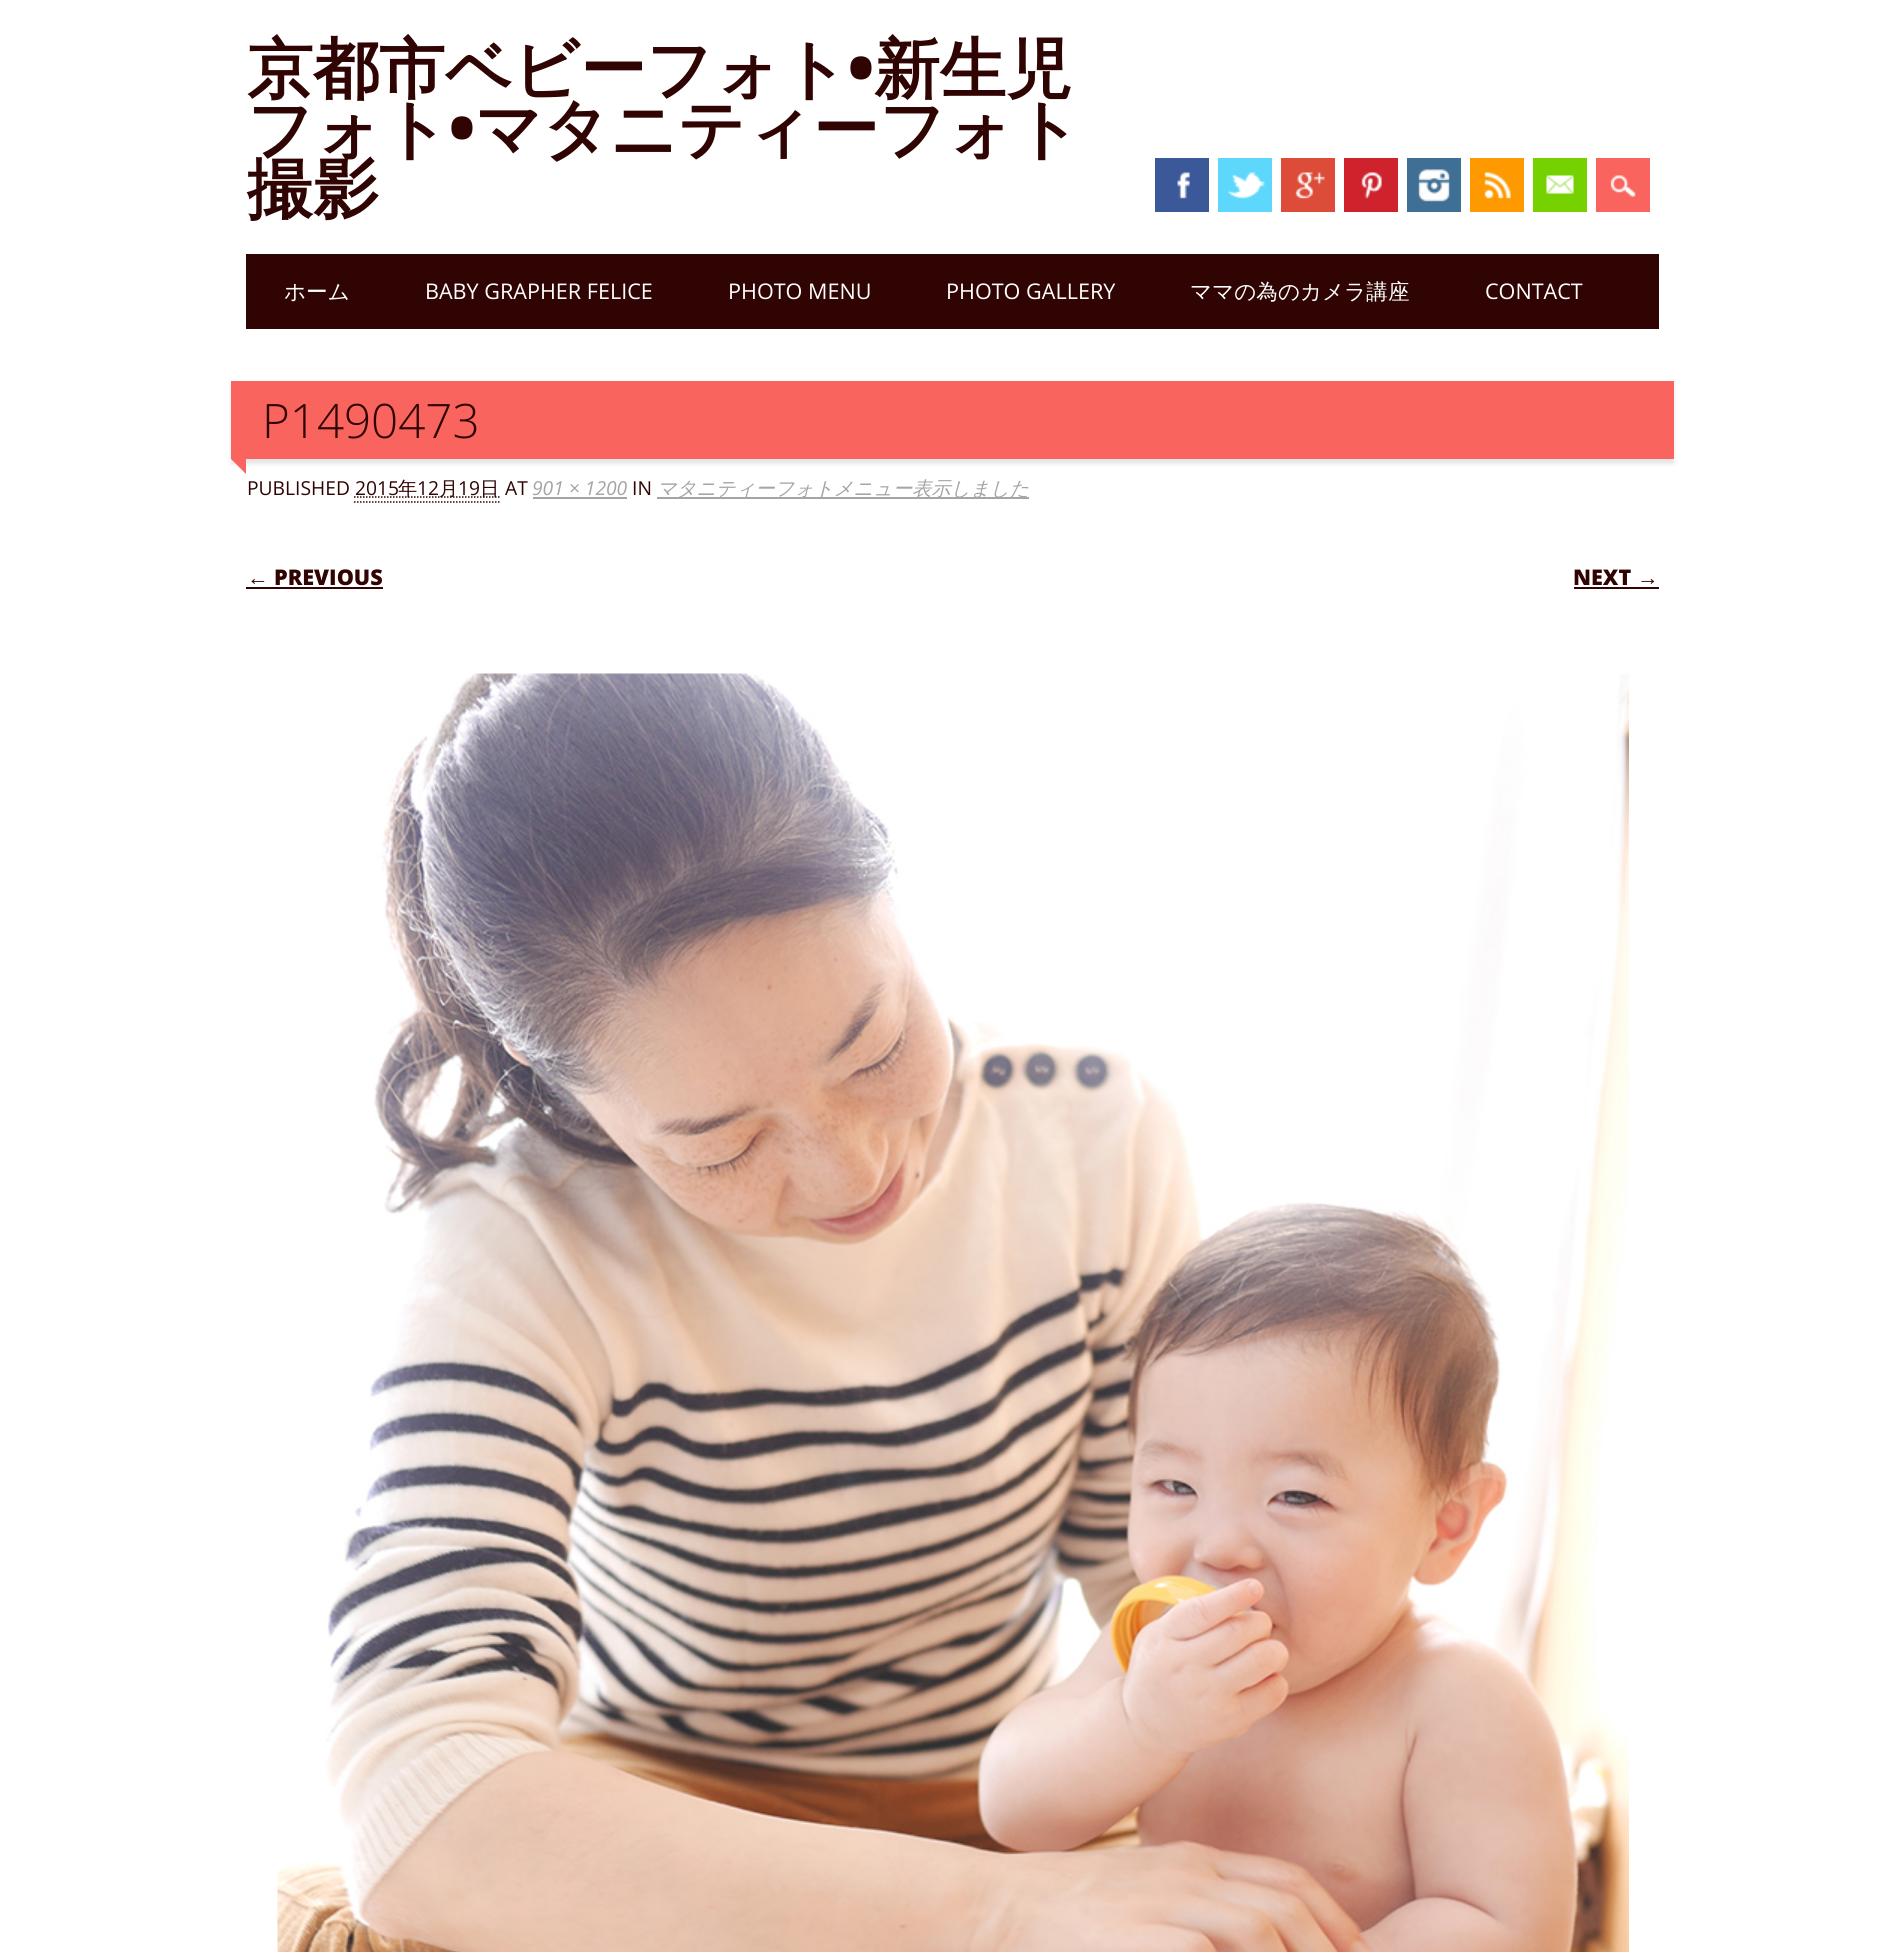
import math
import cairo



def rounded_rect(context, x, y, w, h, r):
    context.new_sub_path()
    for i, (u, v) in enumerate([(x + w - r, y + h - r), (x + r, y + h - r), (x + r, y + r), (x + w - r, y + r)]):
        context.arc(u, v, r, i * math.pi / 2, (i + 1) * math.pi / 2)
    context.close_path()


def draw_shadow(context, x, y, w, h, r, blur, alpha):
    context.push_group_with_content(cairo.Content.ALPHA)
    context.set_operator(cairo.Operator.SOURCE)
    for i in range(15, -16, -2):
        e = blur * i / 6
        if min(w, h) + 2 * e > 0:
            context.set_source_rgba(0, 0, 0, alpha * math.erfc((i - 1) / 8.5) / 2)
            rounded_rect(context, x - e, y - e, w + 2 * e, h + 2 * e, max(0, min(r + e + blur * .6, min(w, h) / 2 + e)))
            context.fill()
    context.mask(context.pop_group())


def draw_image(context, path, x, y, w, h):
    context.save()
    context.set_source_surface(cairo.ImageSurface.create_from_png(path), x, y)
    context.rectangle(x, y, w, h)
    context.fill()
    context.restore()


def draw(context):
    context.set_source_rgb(1, 1, 1)
    context.paint()
    context.set_source_rgb(59 / 255, 89 / 255, 152 / 255)
    context.rectangle(1155, 158, 54, 54)
    context.fill()
    draw_image(context, "images/1.png", 1177, 172, 13, 27)
    context.set_source_rgb(93 / 255, 215 / 255, 252 / 255)
    context.rectangle(1218, 158, 54, 54)
    context.fill()
    draw_image(context, "images/2.png", 1228, 172, 37, 27)
    context.set_source_rgb(221 / 255, 75 / 255, 57 / 255)
    context.rectangle(1281, 158, 54, 54)
    context.fill()
    draw_image(context, "images/3.png", 1295, 172, 30, 27)
    context.set_source_rgb(206 / 255, 35 / 255, 44 / 255)
    context.rectangle(1344, 158, 54, 54)
    context.fill()
    draw_image(context, "images/4.png", 1361, 172, 21, 27)
    context.set_source_rgb(64 / 255, 111 / 255, 149 / 255)
    context.rectangle(1407, 158, 54, 54)
    context.fill()
    draw_image(context, "images/5.png", 1418, 169, 32, 33)
    context.set_source_rgb(254 / 255, 153 / 255, 0)
    context.rectangle(1470, 158, 54, 54)
    context.fill()
    draw_image(context, "images/6.png", 1484, 172, 27, 27)
    context.set_source_rgb(117 / 255, 209 / 255, 0)
    context.rectangle(1533, 158, 54, 54)
    context.fill()
    draw_image(context, "images/7.png", 1546, 175, 28, 19)
    context.set_source_rgb(249 / 255, 101 / 255, 94 / 255)
    context.rectangle(1596, 158, 54, 54)
    context.fill()
    draw_image(context, "images/8.png", 1610, 175, 26, 22)
    context.set_source_rgb(47 / 255, 4 / 255, 2 / 255)
    context.rectangle(246, 254, 1413, 75)
    context.fill()
    context.set_source_rgb(0, 0, 0)
    draw_shadow(context, 231, 386, 1443, 78, 0, 2, 0.1)
    context.set_source_rgb(249 / 255, 101 / 255, 94 / 255)
    context.rectangle(231, 381, 1443, 78)
    context.fill()
    context.new_path()
    context.move_to(246, 459)
    context.line_to(246, 474)
    context.line_to(231, 459)
    context.close_path()
    context.fill()
    context.new_path()
    context.move_to(354, 502)
    context.line_to(499.5, 502)
    context.set_source_rgb(47 / 255, 4 / 255, 2 / 255)
    context.set_line_width(1.5)
    context.set_dash([1.5, 1.5])
    context.stroke()
    context.new_path()
    context.move_to(354, 497)
    context.line_to(499.5, 497)
    context.stroke()
    context.set_source_rgb(164 / 255, 164 / 255, 164 / 255)
    context.rectangle(533, 497, 94, 2)
    context.fill()
    context.rectangle(657, 497, 372, 2)
    context.fill()
    context.set_source_rgb(47 / 255, 4 / 255, 2 / 255)
    context.rectangle(246, 587, 137, 2)
    context.fill()
    context.rectangle(1574, 587, 85, 2)
    context.fill()
    draw_image(context, "images/9.png", 277, 673, 1352, 1279)
    context.select_font_face("WenQuanYi Zen Hei", cairo.FontSlant.NORMAL, cairo.FontWeight.BOLD)
    context.set_font_size(66)
    context.move_to(247, 92)
    context.show_text("京都市ベビーフォト")
    context.select_font_face("Open Sans ExtraBold")
    context.move_to(848, 92)
    context.show_text("•")
    context.select_font_face("WenQuanYi Zen Hei", cairo.FontSlant.NORMAL, cairo.FontWeight.BOLD)
    context.move_to(874, 92)
    context.show_text("新生児")
    context.move_to(247, 152)
    context.show_text("フォト")
    context.select_font_face("Open Sans ExtraBold")
    context.move_to(449, 152)
    context.show_text("•")
    context.select_font_face("WenQuanYi Zen Hei", cairo.FontSlant.NORMAL, cairo.FontWeight.BOLD)
    context.move_to(475, 152)
    context.show_text("マタニティーフォト")
    context.move_to(247, 212)
    context.show_text("撮影")
    context.select_font_face("WenQuanYi Zen Hei Medium")
    context.set_font_size(21.6)
    context.set_source_rgb(1, 1, 1)
    context.move_to(284, 299)
    context.show_text("ホーム")
    context.select_font_face("Open Sans")
    context.move_to(425, 299)
    context.show_text("BABY GRAPHER FELICE")
    context.move_to(728, 299)
    context.show_text("PHOTO MENU")
    context.move_to(946, 299)
    context.show_text("PHOTO GALLERY")
    context.select_font_face("WenQuanYi Zen Hei Medium")
    context.move_to(1190, 299)
    context.show_text("ママの為のカメラ講座")
    context.select_font_face("Open Sans")
    context.move_to(1485, 299)
    context.show_text("CONTACT")
    context.select_font_face("Open Sans Light")
    context.set_font_size(47.5)
    context.set_source_rgb(47 / 255, 4 / 255, 2 / 255)
    context.move_to(262, 438)
    context.show_text("P1490473")
    context.select_font_face("Open Sans")
    context.set_font_size(19.25)
    context.move_to(247, 495)
    context.show_text("PUBLISHED 2015")
    context.select_font_face("WenQuanYi Zen Hei Medium")
    context.move_to(398, 495)
    context.show_text("年")
    context.select_font_face("Open Sans")
    context.move_to(417, 495)
    context.show_text("12")
    context.select_font_face("WenQuanYi Zen Hei Medium")
    context.move_to(439, 495)
    context.show_text("月")
    context.select_font_face("Open Sans")
    context.move_to(458, 495)
    context.show_text("19")
    context.select_font_face("WenQuanYi Zen Hei Medium")
    context.move_to(480, 495)
    context.show_text("日")
    context.select_font_face("Open Sans")
    context.move_to(505, 495)
    context.show_text("AT")
    context.select_font_face("Open Sans", cairo.FontSlant.ITALIC)
    context.set_source_rgb(164 / 255, 164 / 255, 164 / 255)
    context.move_to(532, 495)
    context.show_text("901 × 1200")
    context.select_font_face("Open Sans")
    context.set_source_rgb(47 / 255, 4 / 255, 2 / 255)
    context.move_to(632, 495)
    context.show_text("IN")
    context.select_font_face("WenQuanYi Zen Hei Medium", cairo.FontSlant.ITALIC)
    context.set_source_rgb(164 / 255, 164 / 255, 164 / 255)
    context.move_to(657, 495)
    context.show_text("マタニティーフォトメニュー表示しました")
    context.select_font_face("Liberation Sans", cairo.FontSlant.NORMAL, cairo.FontWeight.BOLD)
    context.set_font_size(21.6)
    context.set_source_rgb(47 / 255, 4 / 255, 2 / 255)
    context.move_to(247, 585)
    context.show_text("←")
    context.select_font_face("Open Sans ExtraBold")
    context.move_to(274, 585)
    context.show_text("PREVIOUS")
    context.move_to(1573, 585)
    context.show_text("NEXT")
    context.select_font_face("Liberation Sans", cairo.FontSlant.NORMAL, cairo.FontWeight.BOLD)
    context.move_to(1637, 585)
    context.show_text("→")


surface = cairo.ImageSurface(cairo.Format.RGB24, 1904, 1952)
context = cairo.Context(surface)
options = cairo.FontOptions()
options.set_hint_metrics(cairo.HintMetrics.OFF)
options.set_hint_style(cairo.HintStyle.NONE)
context.set_font_options(options)
context.set_miter_limit(4)
draw(context)
surface.write_to_png("out.png")
